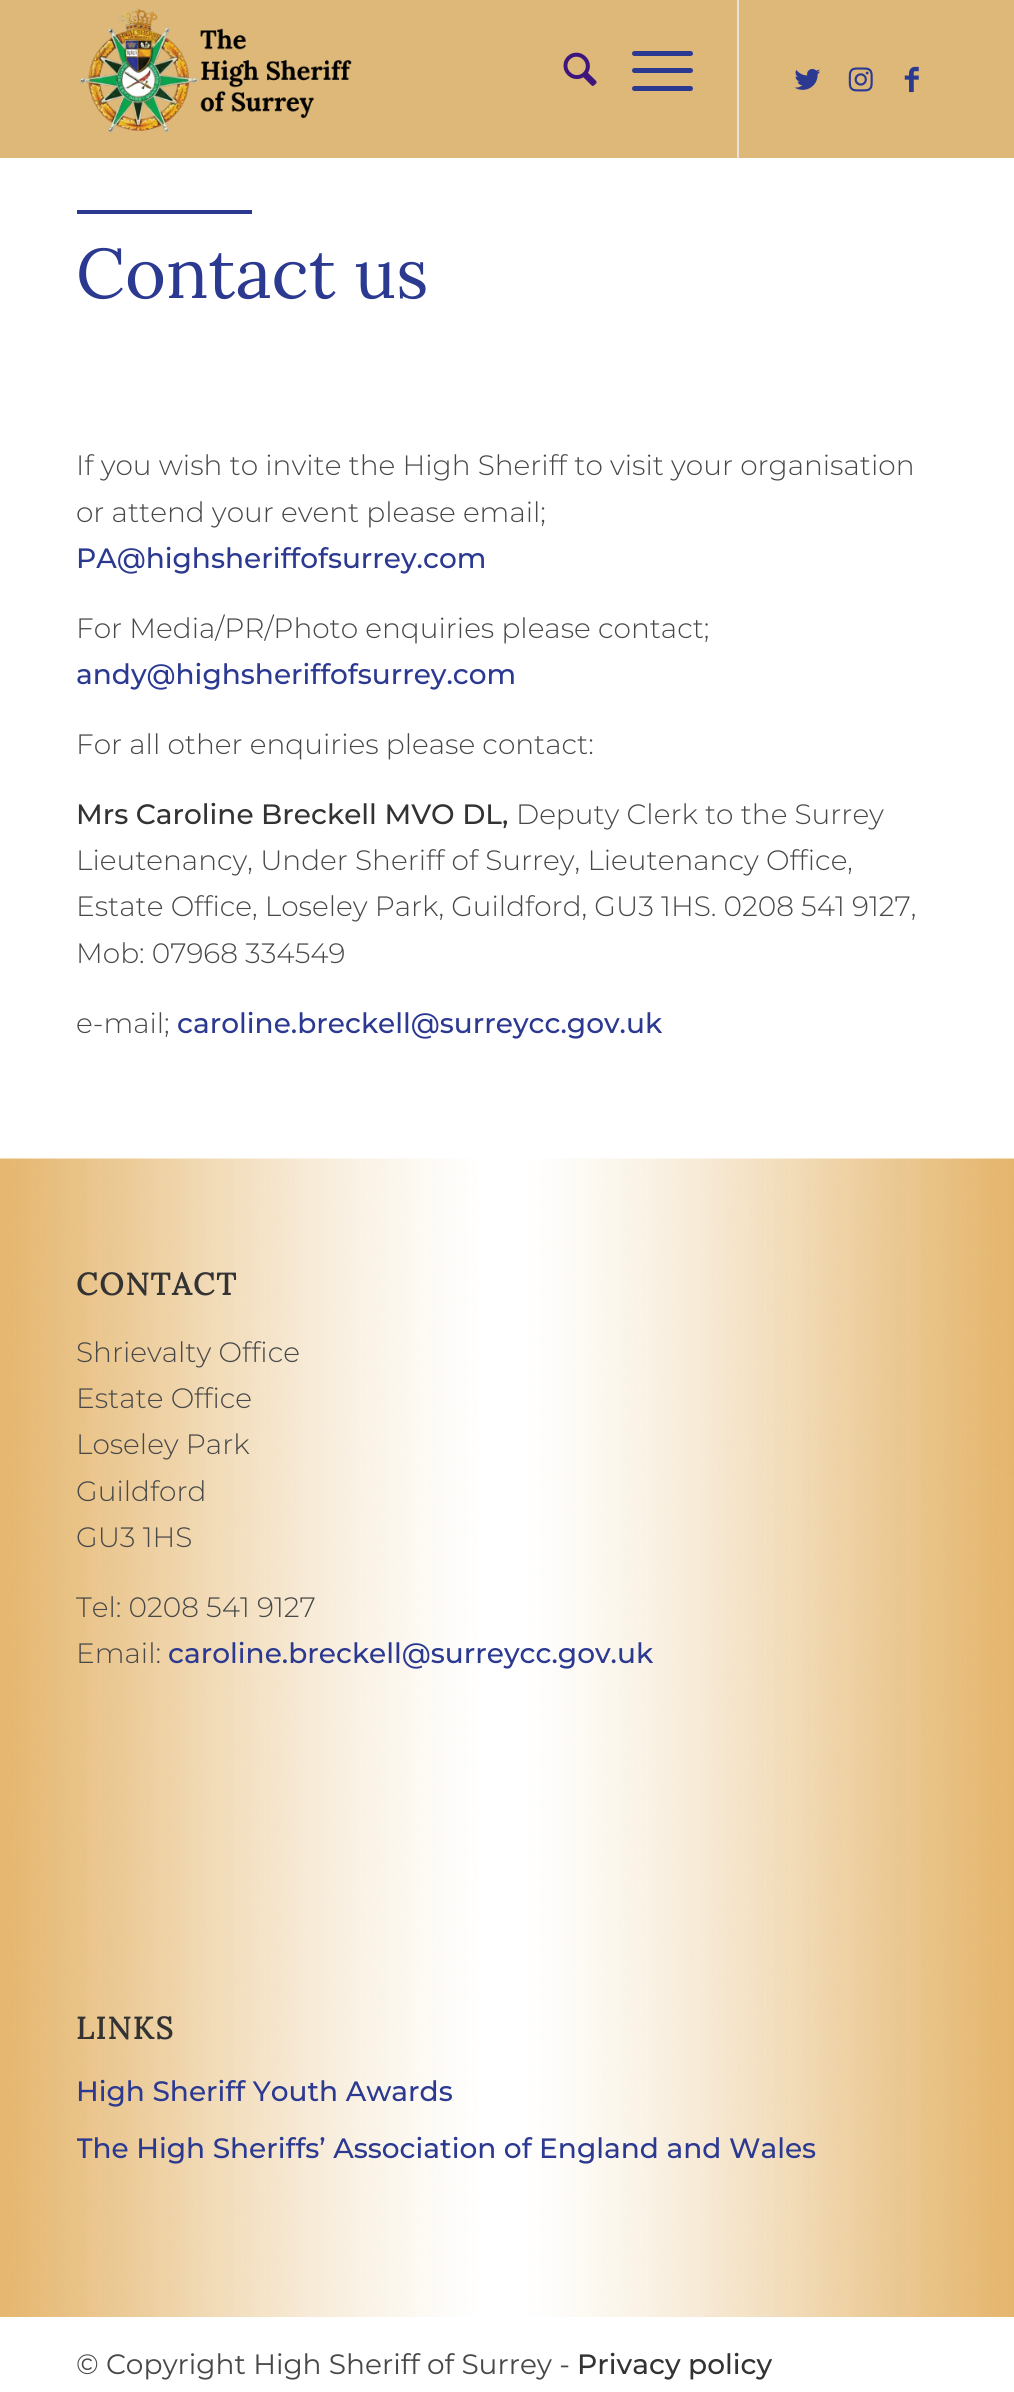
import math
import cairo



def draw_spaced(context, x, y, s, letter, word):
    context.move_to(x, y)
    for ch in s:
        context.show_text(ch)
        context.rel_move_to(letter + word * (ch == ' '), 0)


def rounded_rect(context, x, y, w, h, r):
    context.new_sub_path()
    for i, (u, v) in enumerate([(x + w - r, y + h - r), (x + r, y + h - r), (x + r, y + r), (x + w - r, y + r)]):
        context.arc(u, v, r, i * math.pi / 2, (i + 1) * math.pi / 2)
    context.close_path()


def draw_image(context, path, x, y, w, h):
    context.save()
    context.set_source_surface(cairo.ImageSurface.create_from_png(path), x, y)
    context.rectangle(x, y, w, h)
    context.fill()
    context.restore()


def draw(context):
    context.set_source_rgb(1, 1, 1)
    context.paint()
    context.set_source_rgb(222 / 255, 184 / 255, 121 / 255)
    context.rectangle(0, 0, 1014, 158)
    context.fill()
    draw_image(context, "images/1.png", 79, 8, 273, 125)
    context.set_source_rgb(230 / 255, 227 / 255, 223 / 255)
    context.rectangle(737, 0, 2, 158)
    context.fill()
    draw_image(context, "images/2.png", 563, 52, 34, 34)
    context.set_source_rgb(43 / 255, 57 / 255, 145 / 255)
    rounded_rect(context, 632, 68, 61, 5, 2.5)
    context.fill()
    rounded_rect(context, 632, 51, 61, 5, 2.5)
    context.fill()
    rounded_rect(context, 632, 86, 61, 5, 2.5)
    context.fill()
    draw_image(context, "images/3.png", 794, 69, 27, 21)
    draw_image(context, "images/4.png", 848, 67, 25, 25)
    draw_image(context, "images/5.png", 904, 66, 15, 27)
    context.rectangle(77, 210, 175, 4)
    context.fill()
    draw_image(context, "images/6.png", 0, 1158, 1014, 1159)
    context.select_font_face("Lora")
    context.set_font_size(70)
    context.move_to(76, 298)
    context.show_text("Contact us")
    context.select_font_face("Montserrat Light")
    context.set_font_size(28)
    context.set_source_rgb(72 / 255, 72 / 255, 72 / 255)
    context.move_to(76, 475)
    context.show_text("If you wish to invite the High Sheriff to visit your organisation")
    context.move_to(76, 522)
    context.show_text("or attend your event please email;")
    context.select_font_face("Montserrat Medium")
    context.set_source_rgb(43 / 255, 57 / 255, 145 / 255)
    context.move_to(76, 568)
    context.show_text("PA@highsheriffofsurrey.com")
    context.select_font_face("Montserrat Light")
    context.set_source_rgb(72 / 255, 72 / 255, 72 / 255)
    context.move_to(76, 638)
    context.show_text("For Media/PR/Photo enquiries please contact;")
    context.select_font_face("Montserrat Medium")
    context.set_source_rgb(43 / 255, 57 / 255, 145 / 255)
    context.move_to(76, 684)
    context.show_text("andy@highsheriffofsurrey.com")
    context.select_font_face("Montserrat Light")
    context.set_source_rgb(72 / 255, 72 / 255, 72 / 255)
    context.move_to(76, 754)
    context.show_text("For all other enquiries please contact:")
    context.select_font_face("Montserrat Medium")
    context.set_source_rgb(51 / 255, 51 / 255, 51 / 255)
    context.move_to(76, 824)
    context.show_text("Mrs Caroline Breckell MVO DL,")
    context.select_font_face("Montserrat Light")
    context.set_source_rgb(72 / 255, 72 / 255, 72 / 255)
    context.move_to(516, 824)
    context.show_text("Deputy Clerk to the Surrey")
    context.move_to(76, 870)
    context.show_text("Lieutenancy, Under Sheriff of Surrey, Lieutenancy Office,")
    context.move_to(76, 916)
    context.show_text("Estate Office, Loseley Park, Guildford, GU3 1HS. 0208 541 9127,")
    context.move_to(76, 963)
    context.show_text("Mob: 07968 334549")
    context.move_to(76, 1033)
    context.show_text("e-mail;")
    context.select_font_face("Montserrat Medium")
    context.set_source_rgb(43 / 255, 57 / 255, 145 / 255)
    context.move_to(177, 1033)
    context.show_text("caroline.breckell@surreycc.gov.uk")
    context.select_font_face("Lora", cairo.FontSlant.NORMAL, cairo.FontWeight.BOLD)
    context.set_font_size(30.75)
    context.set_source_rgb(51 / 255, 51 / 255, 51 / 255)
    draw_spaced(context, 76, 1295, "CONTACT", 1.75, 0)
    context.select_font_face("Montserrat Light")
    context.set_font_size(28)
    context.set_source_rgb(72 / 255, 72 / 255, 72 / 255)
    context.move_to(76, 1362)
    context.show_text("Shrievalty Office")
    context.move_to(76, 1408)
    context.show_text("Estate Office")
    context.move_to(76, 1454)
    context.show_text("Loseley Park")
    context.move_to(76, 1501)
    context.show_text("Guildford")
    context.move_to(76, 1547)
    context.show_text("GU3 1HS")
    context.move_to(76, 1617)
    context.show_text("Tel: 0208 541 9127")
    context.move_to(76, 1663)
    context.show_text("Email:")
    context.select_font_face("Montserrat Medium")
    context.set_source_rgb(43 / 255, 57 / 255, 145 / 255)
    context.move_to(168, 1663)
    context.show_text("caroline.breckell@surreycc.gov.uk")
    context.select_font_face("Lora", cairo.FontSlant.NORMAL, cairo.FontWeight.BOLD)
    context.set_font_size(30.75)
    context.set_source_rgb(51 / 255, 51 / 255, 51 / 255)
    draw_spaced(context, 76, 2039, "LINKS", 1.75, 0)
    context.select_font_face("Montserrat Medium")
    context.set_font_size(28)
    context.set_source_rgb(43 / 255, 57 / 255, 145 / 255)
    context.move_to(76, 2101)
    context.show_text("High Sheriff Youth Awards")
    context.save()
    context.rectangle(77, 1981, 863, 198)
    context.clip()
    context.move_to(76, 2158)
    context.show_text("The High Sheriffs’ Association of England and Wales")
    context.restore()
    context.select_font_face("Montserrat")
    context.set_source_rgb(72 / 255, 72 / 255, 72 / 255)
    context.move_to(76, 2374)
    context.show_text("© Copyright High Sheriff of Surrey -")
    context.select_font_face("Montserrat Medium")
    context.set_source_rgb(51 / 255, 51 / 255, 51 / 255)
    context.move_to(577, 2374)
    context.show_text("Privacy policy")


surface = cairo.ImageSurface(cairo.Format.RGB24, 1014, 2392)
context = cairo.Context(surface)
options = cairo.FontOptions()
options.set_hint_metrics(cairo.HintMetrics.OFF)
options.set_hint_style(cairo.HintStyle.NONE)
context.set_font_options(options)
context.set_miter_limit(4)
draw(context)
surface.write_to_png("out.png")
